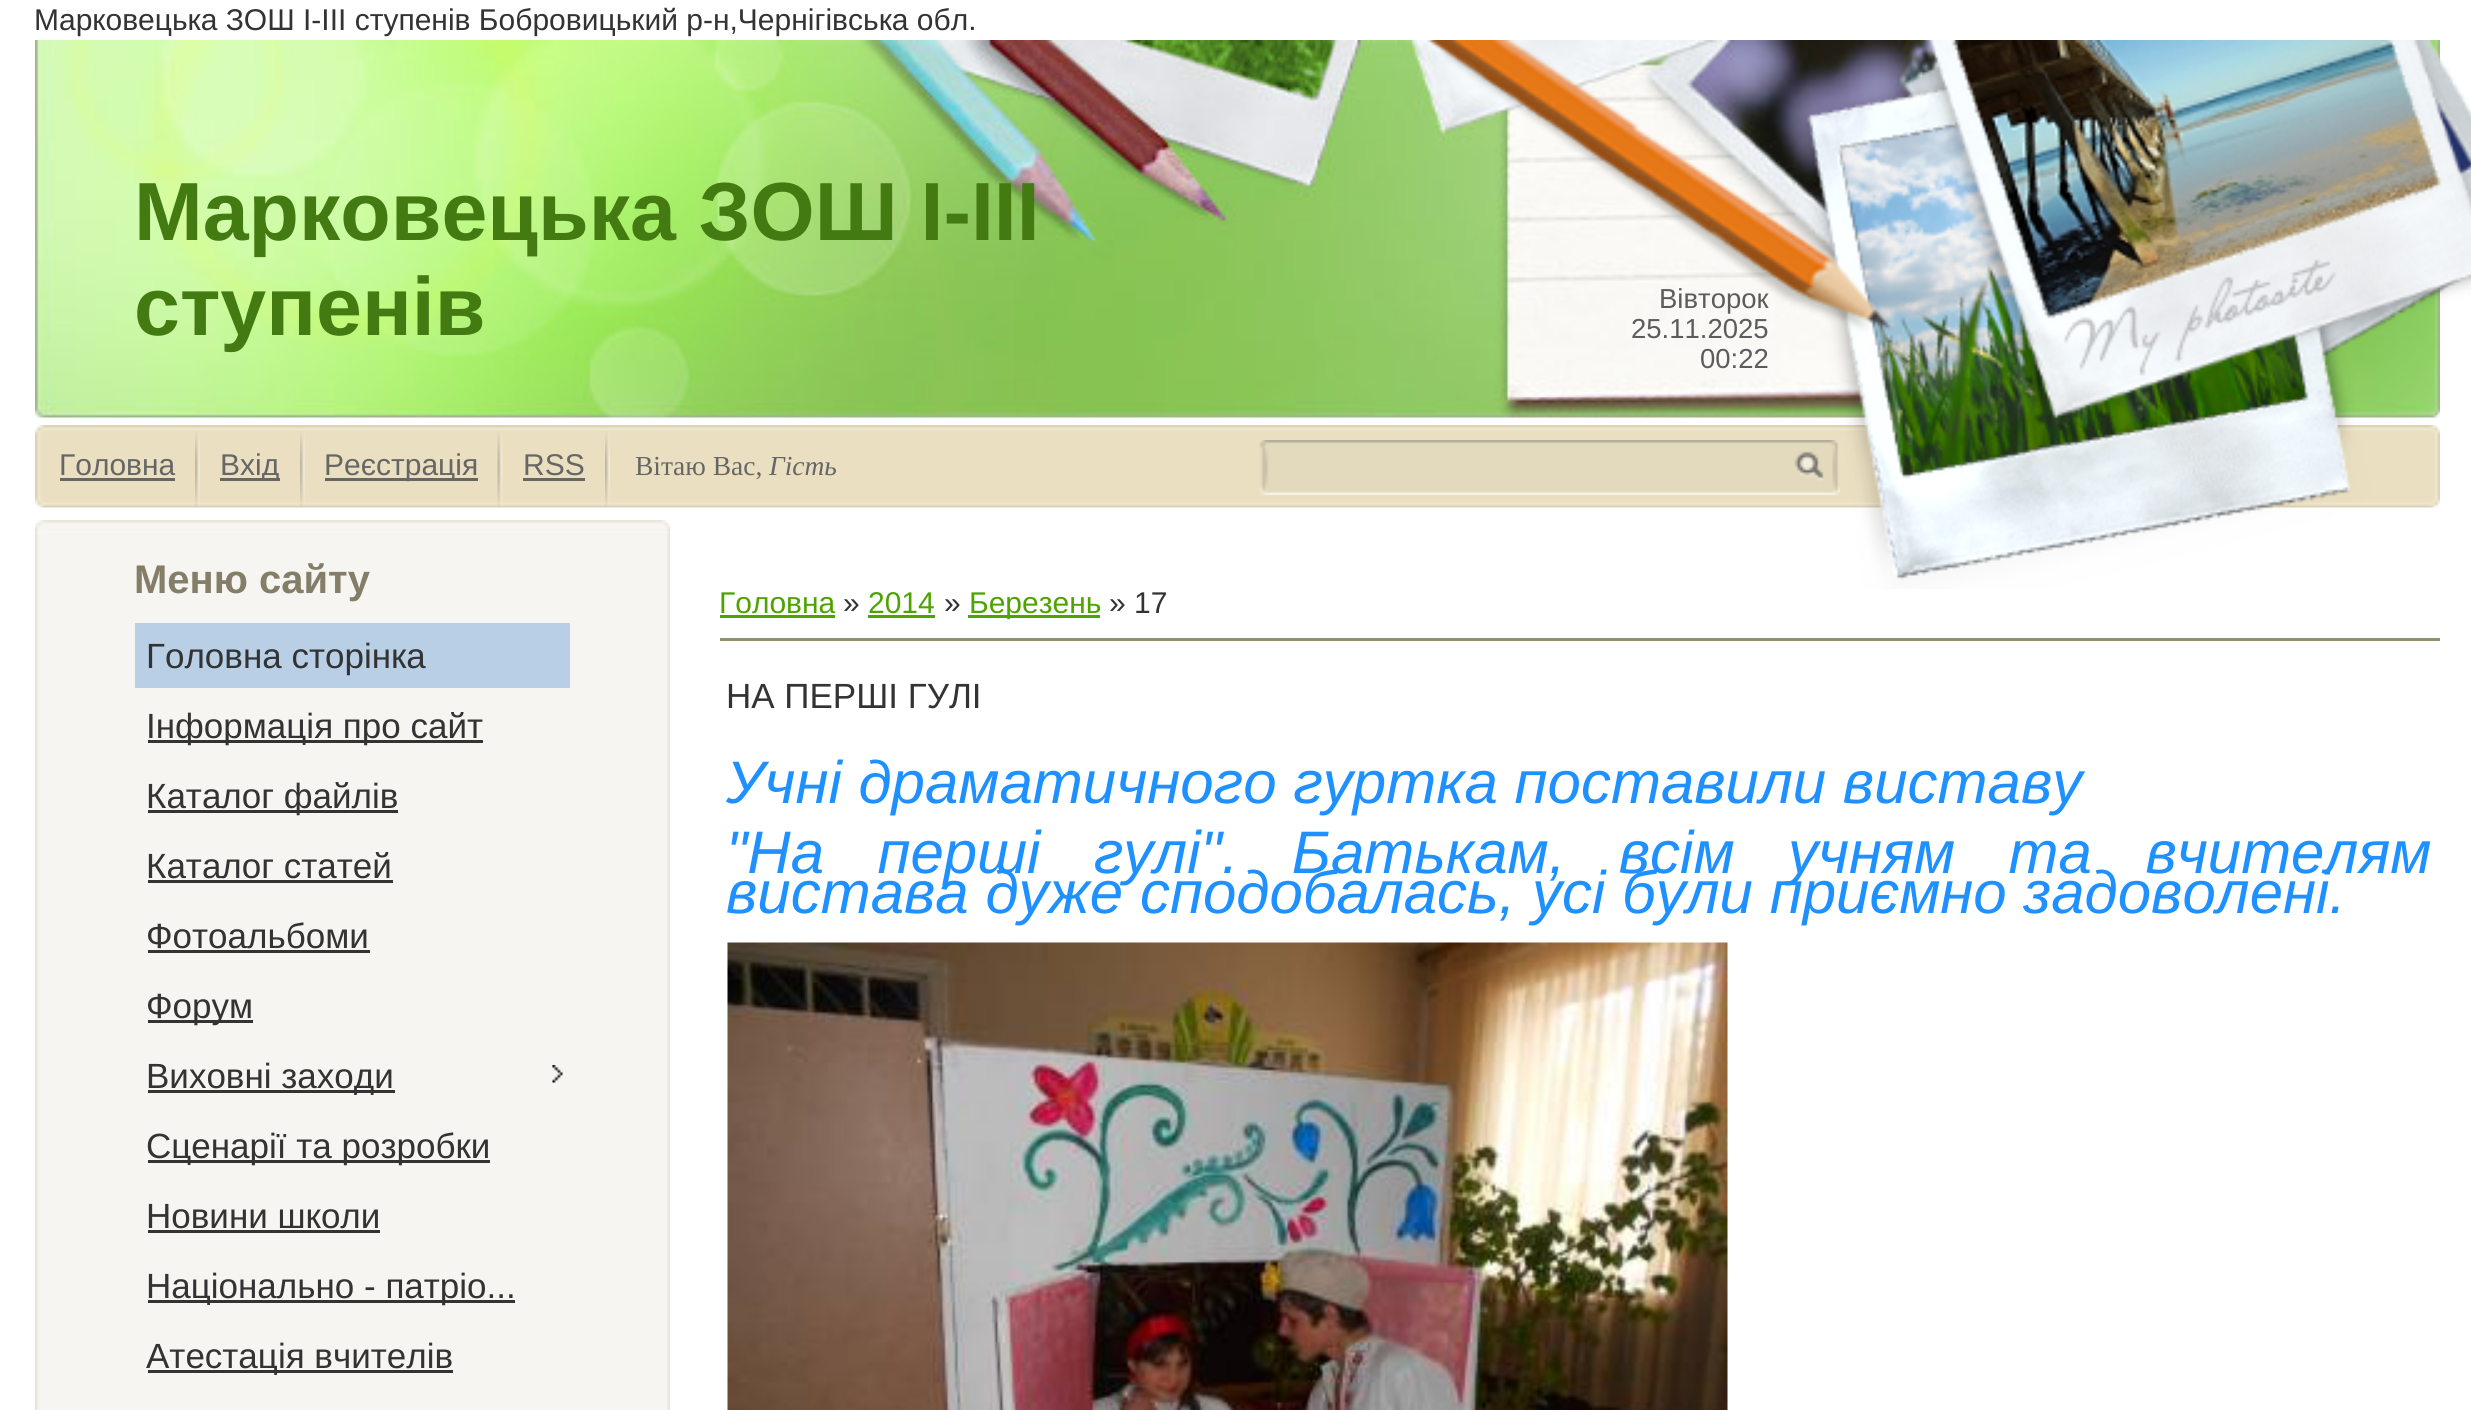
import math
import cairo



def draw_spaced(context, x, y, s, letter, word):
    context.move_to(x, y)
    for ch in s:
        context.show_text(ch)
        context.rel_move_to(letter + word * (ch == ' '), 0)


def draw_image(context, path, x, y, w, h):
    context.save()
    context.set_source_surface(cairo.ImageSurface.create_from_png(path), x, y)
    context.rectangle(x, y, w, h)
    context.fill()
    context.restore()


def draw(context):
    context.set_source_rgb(1, 1, 1)
    context.paint()
    draw_image(context, "images/1.png", 35, 40, 2405, 378)
    draw_image(context, "images/3.png", 35, 425, 2405, 83)
    draw_image(context, "images/2.png", 1427, 40, 1044, 549)
    draw_image(context, "images/4.png", 195, 431, 5, 76)
    context.set_source_rgb(102 / 255, 102 / 255, 102 / 255)
    context.rectangle(60, 478, 115, 3)
    context.fill()
    draw_image(context, "images/4.png", 300, 431, 5, 76)
    context.rectangle(220, 478, 60, 3)
    context.fill()
    draw_image(context, "images/5.png", 497, 431, 6, 76)
    context.rectangle(325, 478, 153, 3)
    context.fill()
    draw_image(context, "images/4.png", 605, 431, 5, 76)
    context.rectangle(523, 478, 62, 3)
    context.fill()
    draw_image(context, "images/6.png", 1259, 440, 581, 55)
    draw_image(context, "images/8.png", 35, 532, 635, 878)
    draw_image(context, "images/7.png", 35, 520, 635, 13)
    context.set_source_rgb(184 / 255, 207 / 255, 230 / 255)
    context.rectangle(135, 623, 435, 65)
    context.fill()
    context.set_source_rgb(51 / 255, 51 / 255, 51 / 255)
    context.rectangle(148, 740, 335, 3)
    context.fill()
    context.rectangle(148, 810, 250, 3)
    context.fill()
    context.rectangle(148, 880, 245, 3)
    context.fill()
    context.rectangle(148, 950, 222, 3)
    context.fill()
    context.rectangle(148, 1020, 105, 3)
    context.fill()
    context.rectangle(148, 1090, 247, 3)
    context.fill()
    draw_image(context, "images/9.png", 552, 1065, 11, 18)
    context.rectangle(148, 1160, 342, 3)
    context.fill()
    context.rectangle(148, 1230, 232, 3)
    context.fill()
    context.rectangle(148, 1300, 367, 3)
    context.fill()
    context.rectangle(148, 1370, 305, 3)
    context.fill()
    context.set_source_rgb(77 / 255, 163 / 255, 1 / 255)
    context.rectangle(720, 615, 115, 3)
    context.fill()
    context.rectangle(868, 615, 67, 3)
    context.fill()
    context.rectangle(968, 615, 132, 3)
    context.fill()
    context.set_source_rgb(145 / 255, 143 / 255, 105 / 255)
    context.rectangle(720, 638, 1720, 3)
    context.fill()
    draw_image(context, "images/10.png", 727, 942, 1001, 468)
    context.select_font_face("Liberation Sans")
    context.set_font_size(30)
    context.set_source_rgb(51 / 255, 51 / 255, 51 / 255)
    context.move_to(34, 30)
    context.show_text("Марковецька ЗОШ І-ІІІ ступенів Бобровицький р-н,Чернігівська обл.")
    context.select_font_face("Liberation Sans", cairo.FontSlant.NORMAL, cairo.FontWeight.BOLD)
    context.set_font_size(82.5)
    context.set_source_rgb(67 / 255, 122 / 255, 18 / 255)
    context.move_to(134, 240)
    context.show_text("Марковецька ЗОШ І-ІІІ")
    context.move_to(134, 335)
    context.show_text("ступенів")
    context.select_font_face("Liberation Sans")
    context.set_font_size(27.5)
    context.set_source_rgb(92 / 255, 92 / 255, 92 / 255)
    context.move_to(1659, 308)
    context.show_text("Вівторок")
    context.move_to(1631, 338)
    context.show_text("25.11.2025")
    context.move_to(1700, 368)
    context.show_text("00:22")
    context.set_font_size(30)
    context.set_source_rgb(102 / 255, 102 / 255, 102 / 255)
    context.move_to(59, 475)
    context.show_text("Головна")
    context.move_to(220, 475)
    context.show_text("Вхід")
    context.move_to(324, 475)
    context.show_text("Реєстрація")
    context.move_to(523, 475)
    context.show_text("RSS")
    context.select_font_face("Liberation Serif")
    context.set_font_size(27.5)
    context.move_to(635, 475)
    context.show_text("Вітаю Вас,")
    context.select_font_face("Liberation Serif", cairo.FontSlant.ITALIC)
    context.move_to(769, 475)
    context.show_text("Гість")
    context.select_font_face("Liberation Sans", cairo.FontSlant.NORMAL, cairo.FontWeight.BOLD)
    context.set_font_size(40)
    context.set_source_rgb(132 / 255, 125 / 255, 104 / 255)
    context.move_to(134, 593)
    context.show_text("Меню сайту")
    context.select_font_face("Liberation Sans")
    context.set_font_size(35)
    context.set_source_rgb(51 / 255, 51 / 255, 51 / 255)
    context.move_to(146, 668)
    context.show_text("Головна сторінка")
    context.move_to(146, 738)
    context.show_text("Інформація про сайт")
    context.move_to(146, 808)
    context.show_text("Каталог файлів")
    context.move_to(146, 878)
    context.show_text("Каталог статей")
    context.move_to(146, 948)
    context.show_text("Фотоальбоми")
    context.move_to(146, 1018)
    context.show_text("Форум")
    context.move_to(146, 1088)
    context.show_text("Виховні заходи")
    context.move_to(146, 1158)
    context.show_text("Сценарії та розробки")
    context.move_to(146, 1228)
    context.show_text("Новини школи")
    context.move_to(146, 1298)
    context.show_text("Національно - патріо...")
    context.move_to(146, 1368)
    context.show_text("Атестація вчителів")
    context.set_font_size(30)
    context.set_source_rgb(77 / 255, 163 / 255, 1 / 255)
    context.move_to(719, 613)
    context.show_text("Головна")
    context.set_source_rgb(51 / 255, 51 / 255, 51 / 255)
    context.move_to(843, 613)
    context.show_text("»")
    context.set_source_rgb(77 / 255, 163 / 255, 1 / 255)
    context.move_to(868, 613)
    context.show_text("2014")
    context.set_source_rgb(51 / 255, 51 / 255, 51 / 255)
    context.move_to(944, 613)
    context.show_text("»")
    context.set_source_rgb(77 / 255, 163 / 255, 1 / 255)
    context.move_to(969, 613)
    context.show_text("Березень")
    context.set_source_rgb(51 / 255, 51 / 255, 51 / 255)
    context.move_to(1109, 613)
    context.show_text("» 17")
    context.set_font_size(35)
    context.move_to(726, 708)
    context.show_text("НА ПЕРШІ ГУЛІ")
    context.select_font_face("Liberation Sans", cairo.FontSlant.ITALIC)
    context.set_font_size(60)
    context.set_source_rgb(30 / 255, 144 / 255, 1)
    context.move_to(726, 803)
    context.show_text("Учні драматичного гуртка поставили виставу")
    draw_spaced(context, 726, 873, "\"На перші гулі\". Батькам, всім учням та вчителям", 0, 36.75)
    context.move_to(726, 913)
    context.show_text("вистава дуже сподобалась, усі були приємно задоволені.")


surface = cairo.ImageSurface(cairo.Format.RGB24, 2471, 1410)
context = cairo.Context(surface)
options = cairo.FontOptions()
options.set_hint_metrics(cairo.HintMetrics.OFF)
options.set_hint_style(cairo.HintStyle.NONE)
context.set_font_options(options)
context.set_miter_limit(4)
draw(context)
surface.write_to_png("out.png")
